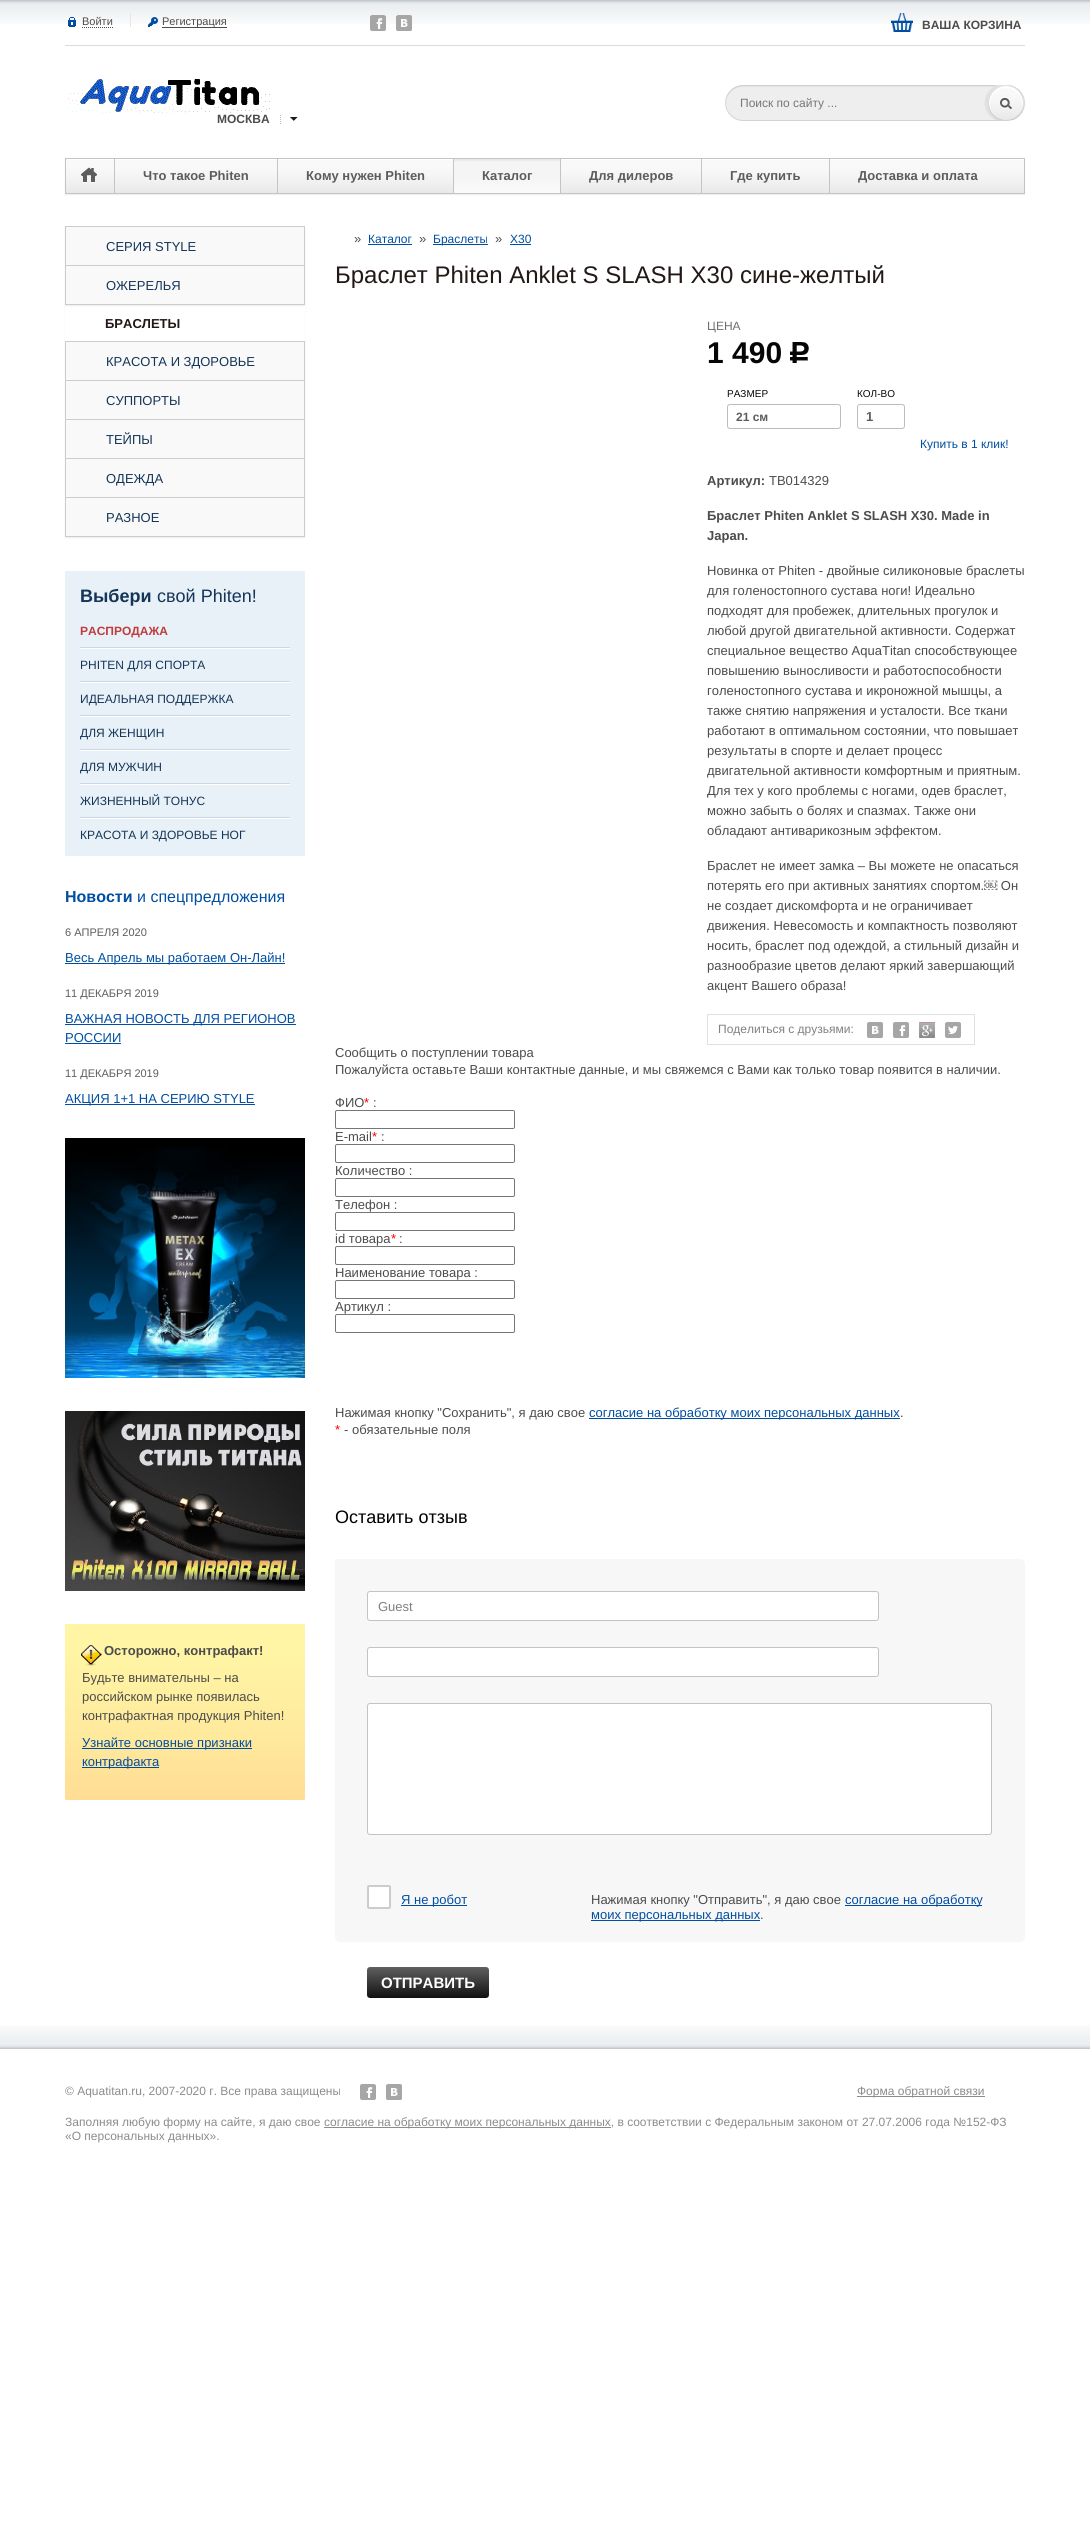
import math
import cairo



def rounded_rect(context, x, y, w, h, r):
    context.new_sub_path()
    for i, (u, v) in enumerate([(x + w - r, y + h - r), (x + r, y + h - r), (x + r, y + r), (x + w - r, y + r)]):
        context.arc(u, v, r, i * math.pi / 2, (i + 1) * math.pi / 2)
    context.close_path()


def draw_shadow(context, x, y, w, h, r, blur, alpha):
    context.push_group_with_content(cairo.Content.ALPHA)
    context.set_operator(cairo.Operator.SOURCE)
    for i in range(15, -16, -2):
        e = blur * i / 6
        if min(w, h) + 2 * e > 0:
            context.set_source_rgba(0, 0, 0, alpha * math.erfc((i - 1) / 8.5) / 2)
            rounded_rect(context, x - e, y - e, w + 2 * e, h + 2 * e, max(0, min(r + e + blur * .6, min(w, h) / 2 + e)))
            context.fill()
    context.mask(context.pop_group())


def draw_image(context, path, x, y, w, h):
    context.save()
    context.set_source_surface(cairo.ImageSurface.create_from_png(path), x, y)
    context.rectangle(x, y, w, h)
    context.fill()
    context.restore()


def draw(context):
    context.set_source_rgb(1, 1, 1)
    context.paint()
    draw_image(context, "images/1.png", 0, 0, 1090, 24)
    draw_image(context, "images/2.png", 68, 17, 8, 10)
    context.new_path()
    context.move_to(82, 27.5)
    context.line_to(113, 27.5)
    context.set_source_rgb(76 / 255, 76 / 255, 76 / 255)
    context.set_line_width(1)
    context.set_dash([1, 1])
    context.stroke()
    draw_image(context, "images/3.png", 148, 17, 10, 10)
    context.set_source_rgb(230 / 255, 230 / 255, 230 / 255)
    context.rectangle(130, 13, 1, 14)
    context.fill()
    context.set_source_rgb(76 / 255, 76 / 255, 76 / 255)
    context.rectangle(162, 27, 65, 1)
    context.fill()
    draw_image(context, "images/4.png", 370, 15, 16, 16)
    draw_image(context, "images/5.png", 396, 15, 16, 16)
    draw_image(context, "images/6.png", 891, 13, 22, 19)
    context.set_source_rgb(219 / 255, 219 / 255, 219 / 255)
    context.rectangle(65, 45, 960, 1)
    context.fill()
    draw_image(context, "images/7.png", 68, 79, 202, 34)
    draw_image(context, "images/8.png", 725, 85, 300, 36)
    draw_image(context, "images/9.png", 984, 85, 40, 35)
    draw_image(context, "images/10.png", 280, 115, 18, 9)
    context.set_source_rgb(238 / 255, 238 / 255, 238 / 255)
    draw_shadow(context, 65, 159, 960, 36, 0, 0.5, 1)
    draw_image(context, "images/11.png", 97, 159, 927, 34)
    context.rectangle(65.5, 158.5, 959, 35)
    context.set_source_rgb(196 / 255, 196 / 255, 196 / 255)
    context.set_dash([])
    context.stroke()
    draw_image(context, "images/12.png", 66, 159, 31, 34)
    context.rectangle(114, 159, 1, 34)
    context.fill()
    context.rectangle(277, 159, 1, 34)
    context.fill()
    context.rectangle(453, 159, 1, 34)
    context.fill()
    draw_image(context, "images/13.png", 454, 159, 106, 34)
    context.rectangle(560, 159, 1, 34)
    context.fill()
    context.rectangle(701, 159, 1, 34)
    context.fill()
    context.rectangle(829, 159, 1, 34)
    context.fill()
    context.set_source_rgb(238 / 255, 238 / 255, 238 / 255)
    draw_shadow(context, 65, 227, 240, 40, 0, 0.5, 1)
    context.set_source_rgb(249 / 255, 249 / 255, 249 / 255)
    context.rectangle(65.5, 226.5, 239, 39)
    context.fill_preserve()
    context.set_source_rgb(204 / 255, 204 / 255, 204 / 255)
    context.stroke()
    context.set_source_rgb(238 / 255, 238 / 255, 238 / 255)
    draw_shadow(context, 65, 266, 240, 40, 0, 0.5, 1)
    context.set_source_rgb(249 / 255, 249 / 255, 249 / 255)
    context.rectangle(65.5, 265.5, 239, 39)
    context.fill_preserve()
    context.set_source_rgb(204 / 255, 204 / 255, 204 / 255)
    context.stroke()
    context.save()
    context.set_fill_rule(cairo.FillRule.EVEN_ODD)
    context.new_path()
    context.move_to(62, 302)
    context.line_to(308, 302)
    context.line_to(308, 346)
    context.line_to(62, 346)
    context.close_path()
    context.move_to(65, 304)
    context.line_to(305, 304)
    context.line_to(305, 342)
    context.line_to(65, 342)
    context.close_path()
    context.clip()
    context.set_source_rgb(238 / 255, 238 / 255, 238 / 255)
    draw_shadow(context, 65, 305, 240, 38, 0, 0.5, 1)
    context.restore()
    context.set_source_rgb(238 / 255, 238 / 255, 238 / 255)
    draw_shadow(context, 65, 342, 240, 40, 0, 0.5, 1)
    context.set_source_rgb(249 / 255, 249 / 255, 249 / 255)
    context.rectangle(65.5, 341.5, 239, 39)
    context.fill_preserve()
    context.set_source_rgb(204 / 255, 204 / 255, 204 / 255)
    context.stroke()
    context.set_source_rgb(238 / 255, 238 / 255, 238 / 255)
    draw_shadow(context, 65, 381, 240, 40, 0, 0.5, 1)
    context.set_source_rgb(249 / 255, 249 / 255, 249 / 255)
    context.rectangle(65.5, 380.5, 239, 39)
    context.fill_preserve()
    context.set_source_rgb(204 / 255, 204 / 255, 204 / 255)
    context.stroke()
    context.set_source_rgb(238 / 255, 238 / 255, 238 / 255)
    draw_shadow(context, 65, 420, 240, 40, 0, 0.5, 1)
    context.set_source_rgb(249 / 255, 249 / 255, 249 / 255)
    context.rectangle(65.5, 419.5, 239, 39)
    context.fill_preserve()
    context.set_source_rgb(204 / 255, 204 / 255, 204 / 255)
    context.stroke()
    context.set_source_rgb(238 / 255, 238 / 255, 238 / 255)
    draw_shadow(context, 65, 459, 240, 40, 0, 0.5, 1)
    context.set_source_rgb(249 / 255, 249 / 255, 249 / 255)
    context.rectangle(65.5, 458.5, 239, 39)
    context.fill_preserve()
    context.set_source_rgb(204 / 255, 204 / 255, 204 / 255)
    context.stroke()
    context.set_source_rgb(238 / 255, 238 / 255, 238 / 255)
    draw_shadow(context, 65, 498, 240, 40, 0, 0.5, 1)
    context.set_source_rgb(249 / 255, 249 / 255, 249 / 255)
    context.rectangle(65.5, 497.5, 239, 39)
    context.fill_preserve()
    context.set_source_rgb(204 / 255, 204 / 255, 204 / 255)
    context.stroke()
    context.set_source_rgb(233 / 255, 241 / 255, 248 / 255)
    context.rectangle(65, 571, 240, 285)
    context.fill()
    context.set_source_rgb(203 / 255, 216 / 255, 228 / 255)
    context.rectangle(80, 647, 210, 1)
    context.fill()
    context.set_source_rgb(1, 1, 1)
    context.rectangle(80, 648, 210, 1)
    context.fill()
    context.set_source_rgb(203 / 255, 216 / 255, 228 / 255)
    context.rectangle(80, 681, 210, 1)
    context.fill()
    context.set_source_rgb(1, 1, 1)
    context.rectangle(80, 682, 210, 1)
    context.fill()
    context.set_source_rgb(203 / 255, 216 / 255, 228 / 255)
    context.rectangle(80, 715, 210, 1)
    context.fill()
    context.set_source_rgb(1, 1, 1)
    context.rectangle(80, 716, 210, 1)
    context.fill()
    context.set_source_rgb(203 / 255, 216 / 255, 228 / 255)
    context.rectangle(80, 749, 210, 1)
    context.fill()
    context.set_source_rgb(1, 1, 1)
    context.rectangle(80, 750, 210, 1)
    context.fill()
    context.set_source_rgb(203 / 255, 216 / 255, 228 / 255)
    context.rectangle(80, 783, 210, 1)
    context.fill()
    context.set_source_rgb(1, 1, 1)
    context.rectangle(80, 784, 210, 1)
    context.fill()
    context.set_source_rgb(203 / 255, 216 / 255, 228 / 255)
    context.rectangle(80, 817, 210, 1)
    context.fill()
    context.set_source_rgb(1, 1, 1)
    context.rectangle(80, 818, 210, 1)
    context.fill()
    context.set_source_rgb(0, 78 / 255, 162 / 255)
    context.rectangle(65, 963, 220, 1)
    context.fill()
    context.rectangle(65, 1024, 231, 1)
    context.fill()
    context.rectangle(65, 1043, 56, 1)
    context.fill()
    context.rectangle(65, 1104, 190, 1)
    context.fill()
    draw_image(context, "images/14.png", 65, 1138, 240, 240)
    draw_image(context, "images/15.png", 65, 1411, 240, 180)
    draw_image(context, "images/16.png", 65, 1624, 240, 176)
    context.rectangle(82, 1748, 170, 1)
    context.fill()
    context.rectangle(82, 1767, 77, 1)
    context.fill()
    context.rectangle(368, 244, 44, 1)
    context.fill()
    context.rectangle(433, 244, 55, 1)
    context.fill()
    context.rectangle(510, 244, 21, 1)
    context.fill()
    draw_image(context, "images/17.png", 790, 342, 19, 21)
    rounded_rect(context, 727.5, 404.5, 113, 24, 2.5)
    context.set_source_rgb(188 / 255, 188 / 255, 188 / 255)
    context.stroke()
    rounded_rect(context, 857.5, 404.5, 47, 24, 2.5)
    context.stroke()
    context.rectangle(707.5, 1014.5, 267, 30)
    context.set_source_rgb(224 / 255, 224 / 255, 224 / 255)
    context.stroke()
    draw_image(context, "images/18.png", 867, 1022, 16, 16)
    draw_image(context, "images/19.png", 893, 1022, 16, 16)
    draw_image(context, "images/20.png", 919, 1022, 16, 16)
    draw_image(context, "images/21.png", 945, 1022, 16, 16)
    rounded_rect(context, 335.5, 1110.5, 179, 18, 1.5)
    context.set_source_rgb(118 / 255, 118 / 255, 118 / 255)
    context.stroke()
    rounded_rect(context, 335.5, 1144.5, 179, 18, 1.5)
    context.stroke()
    rounded_rect(context, 335.5, 1178.5, 179, 18, 1.5)
    context.stroke()
    rounded_rect(context, 335.5, 1212.5, 179, 18, 1.5)
    context.stroke()
    rounded_rect(context, 335.5, 1246.5, 179, 18, 1.5)
    context.stroke()
    rounded_rect(context, 335.5, 1280.5, 179, 18, 1.5)
    context.stroke()
    rounded_rect(context, 335.5, 1314.5, 179, 18, 1.5)
    context.stroke()
    context.set_source_rgb(0, 78 / 255, 162 / 255)
    context.rectangle(589, 1418, 311, 1)
    context.fill()
    context.set_source_rgb(247 / 255, 247 / 255, 247 / 255)
    context.new_path()
    context.move_to(335, 1559)
    context.line_to(1020, 1559)
    context.curve_to(1023, 1559, 1025, 1561, 1025, 1564)
    context.line_to(1025, 1937)
    context.curve_to(1025, 1940, 1023, 1942, 1020, 1942)
    context.line_to(340, 1942)
    context.curve_to(337, 1942, 335, 1940, 335, 1937)
    context.close_path()
    context.fill()
    context.set_source_rgb(1, 1, 1)
    rounded_rect(context, 367.5, 1591.5, 511, 29, 2.5)
    context.fill_preserve()
    context.set_source_rgb(195 / 255, 195 / 255, 195 / 255)
    context.stroke()
    context.set_source_rgb(1, 1, 1)
    rounded_rect(context, 367.5, 1647.5, 511, 29, 2.5)
    context.fill_preserve()
    context.set_source_rgb(195 / 255, 195 / 255, 195 / 255)
    context.stroke()
    context.set_source_rgb(1, 1, 1)
    rounded_rect(context, 367.5, 1703.5, 624, 131, 2.5)
    context.fill_preserve()
    context.set_source_rgb(195 / 255, 195 / 255, 195 / 255)
    context.stroke()
    context.set_source_rgb(1, 1, 1)
    rounded_rect(context, 368, 1886, 22, 22, 1)
    context.fill_preserve()
    context.set_source_rgb(204 / 255, 204 / 255, 204 / 255)
    context.set_line_width(2)
    context.stroke()
    context.set_source_rgb(0, 78 / 255, 162 / 255)
    context.rectangle(401, 1905, 66, 1)
    context.fill()
    context.rectangle(845, 1905, 137, 1)
    context.fill()
    context.rectangle(591, 1920, 169, 1)
    context.fill()
    gradient = cairo.LinearGradient(367, 1967, 367, 1998)
    gradient.add_color_stop_rgba(0, 96 / 255, 96 / 255, 96 / 255, 1)
    gradient.add_color_stop_rgba(1, 17 / 255, 17 / 255, 17 / 255, 1)
    context.set_source(gradient)
    rounded_rect(context, 367, 1967, 122, 31, 3)
    context.fill()
    draw_image(context, "images/22.png", 0, 2025, 1090, 24)
    draw_image(context, "images/19.png", 360, 2084, 16, 16)
    draw_image(context, "images/18.png", 386, 2084, 16, 16)
    context.set_source_rgb(140 / 255, 140 / 255, 140 / 255)
    context.rectangle(857, 2096, 128, 1)
    context.fill()
    context.rectangle(324, 2127, 287, 1)
    context.fill()
    context.select_font_face("Liberation Sans")
    context.set_font_size(11)
    context.set_source_rgb(76 / 255, 76 / 255, 76 / 255)
    context.move_to(82, 25)
    context.show_text("Войти")
    context.move_to(162, 25)
    context.show_text("Регистрация")
    context.select_font_face("Liberation Sans", cairo.FontSlant.NORMAL, cairo.FontWeight.BOLD)
    context.set_font_size(12)
    context.move_to(922, 29)
    context.show_text("ВАША КОРЗИНА")
    context.select_font_face("Liberation Sans")
    context.set_source_rgb(119 / 255, 119 / 255, 119 / 255)
    context.move_to(740, 107)
    context.show_text("Поиск по сайту ...")
    context.select_font_face("Liberation Sans", cairo.FontSlant.NORMAL, cairo.FontWeight.BOLD)
    context.set_source_rgb(76 / 255, 76 / 255, 76 / 255)
    context.move_to(217, 123)
    context.show_text("МОСКВА")
    context.set_font_size(13)
    context.set_source_rgb(92 / 255, 92 / 255, 92 / 255)
    context.move_to(143, 180)
    context.show_text("Что такое Phiten")
    context.move_to(306, 180)
    context.show_text("Кому нужен Phiten")
    context.move_to(482, 180)
    context.show_text("Каталог")
    context.move_to(589, 180)
    context.show_text("Для дилеров")
    context.move_to(730, 180)
    context.show_text("Где купить")
    context.move_to(858, 180)
    context.show_text("Доставка и оплата")
    context.select_font_face("Liberation Sans")
    context.set_source_rgb(20 / 255, 53 / 255, 88 / 255)
    context.move_to(106, 251)
    context.show_text("СЕРИЯ STYLE")
    context.move_to(106, 290)
    context.show_text("ОЖЕРЕЛЬЯ")
    context.select_font_face("Liberation Sans", cairo.FontSlant.NORMAL, cairo.FontWeight.BOLD)
    context.set_source_rgb(34 / 255, 24 / 255, 21 / 255)
    context.move_to(105, 328)
    context.show_text("БРАСЛЕТЫ")
    context.select_font_face("Liberation Sans")
    context.set_source_rgb(20 / 255, 53 / 255, 88 / 255)
    context.move_to(106, 366)
    context.show_text("КРАСОТА И ЗДОРОВЬЕ")
    context.move_to(106, 405)
    context.show_text("СУППОРТЫ")
    context.move_to(106, 444)
    context.show_text("ТЕЙПЫ")
    context.move_to(106, 483)
    context.show_text("ОДЕЖДА")
    context.move_to(106, 522)
    context.show_text("РАЗНОЕ")
    context.select_font_face("Liberation Sans", cairo.FontSlant.NORMAL, cairo.FontWeight.BOLD)
    context.set_font_size(18)
    context.move_to(80, 602)
    context.show_text("Выбери")
    context.select_font_face("Liberation Sans")
    context.move_to(157, 602)
    context.show_text("свой Phiten!")
    context.select_font_face("Liberation Sans", cairo.FontSlant.NORMAL, cairo.FontWeight.BOLD)
    context.set_font_size(12)
    context.set_source_rgb(191 / 255, 61 / 255, 61 / 255)
    context.move_to(80, 635)
    context.show_text("РАСПРОДАЖА")
    context.select_font_face("Liberation Sans")
    context.set_source_rgb(20 / 255, 53 / 255, 88 / 255)
    context.move_to(80, 669)
    context.show_text("PHITEN ДЛЯ СПОРТА")
    context.move_to(80, 703)
    context.show_text("ИДЕАЛЬНАЯ ПОДДЕРЖКА")
    context.move_to(80, 737)
    context.show_text("ДЛЯ ЖЕНЩИН")
    context.move_to(80, 771)
    context.show_text("ДЛЯ МУЖЧИН")
    context.move_to(80, 805)
    context.show_text("ЖИЗНЕННЫЙ ТОНУС")
    context.move_to(80, 839)
    context.show_text("КРАСОТА И ЗДОРОВЬЕ НОГ")
    context.select_font_face("Liberation Sans", cairo.FontSlant.NORMAL, cairo.FontWeight.BOLD)
    context.set_font_size(16)
    context.set_source_rgb(0, 78 / 255, 162 / 255)
    context.move_to(65, 902)
    context.show_text("Новости")
    context.select_font_face("Liberation Sans")
    context.move_to(137, 902)
    context.show_text("и спецпредложения")
    context.set_font_size(11)
    context.set_source_rgb(92 / 255, 92 / 255, 92 / 255)
    context.move_to(65, 936)
    context.show_text("6 АПРЕЛЯ 2020")
    context.set_font_size(13)
    context.set_source_rgb(0, 78 / 255, 162 / 255)
    context.move_to(65, 962)
    context.show_text("Весь Апрель мы работаем Он-Лайн!")
    context.set_font_size(11)
    context.set_source_rgb(92 / 255, 92 / 255, 92 / 255)
    context.move_to(65, 997)
    context.show_text("11 ДЕКАБРЯ 2019")
    context.set_font_size(13)
    context.set_source_rgb(0, 78 / 255, 162 / 255)
    context.move_to(65, 1023)
    context.show_text("ВАЖНАЯ НОВОСТЬ ДЛЯ РЕГИОНОВ")
    context.move_to(65, 1042)
    context.show_text("РОССИИ")
    context.set_font_size(11)
    context.set_source_rgb(92 / 255, 92 / 255, 92 / 255)
    context.move_to(65, 1077)
    context.show_text("11 ДЕКАБРЯ 2019")
    context.set_font_size(13)
    context.set_source_rgb(0, 78 / 255, 162 / 255)
    context.move_to(65, 1103)
    context.show_text("АКЦИЯ 1+1 НА СЕРИЮ STYLE")
    context.select_font_face("Liberation Sans", cairo.FontSlant.NORMAL, cairo.FontWeight.BOLD)
    context.set_source_rgb(76 / 255, 76 / 255, 76 / 255)
    context.move_to(104, 1655)
    context.show_text("Осторожно, контрафакт!")
    context.select_font_face("Liberation Sans")
    context.move_to(82, 1682)
    context.show_text("Будьте внимательны – на")
    context.move_to(82, 1701)
    context.show_text("российском рынке появилась")
    context.move_to(82, 1720)
    context.show_text("контрафактная продукция Phiten!")
    context.set_source_rgb(0, 78 / 255, 162 / 255)
    context.move_to(82, 1747)
    context.show_text("Узнайте основные признаки")
    context.move_to(82, 1766)
    context.show_text("контрафакта")
    context.set_source_rgb(76 / 255, 76 / 255, 76 / 255)
    context.move_to(354, 243)
    context.show_text("»")
    context.set_font_size(12)
    context.set_source_rgb(0, 78 / 255, 162 / 255)
    context.move_to(368, 243)
    context.show_text("Каталог")
    context.set_font_size(13)
    context.set_source_rgb(76 / 255, 76 / 255, 76 / 255)
    context.move_to(419, 243)
    context.show_text("»")
    context.set_font_size(12)
    context.set_source_rgb(0, 78 / 255, 162 / 255)
    context.move_to(433, 243)
    context.show_text("Браслеты")
    context.set_font_size(13)
    context.set_source_rgb(76 / 255, 76 / 255, 76 / 255)
    context.move_to(495, 243)
    context.show_text("»")
    context.set_font_size(12)
    context.set_source_rgb(0, 78 / 255, 162 / 255)
    context.move_to(510, 243)
    context.show_text("X30")
    context.set_font_size(24)
    context.set_source_rgb(34 / 255, 24 / 255, 21 / 255)
    context.move_to(335, 283)
    context.show_text("Браслет Phiten Anklet S SLASH Х30 сине-желтый")
    context.set_font_size(12)
    context.set_source_rgb(110 / 255, 110 / 255, 110 / 255)
    context.move_to(707, 330)
    context.show_text("ЦЕНА")
    context.select_font_face("Liberation Sans", cairo.FontSlant.NORMAL, cairo.FontWeight.BOLD)
    context.set_font_size(30)
    context.set_source_rgb(6 / 255, 6 / 255, 6 / 255)
    context.move_to(707, 363)
    context.show_text("1 490")
    context.select_font_face("Liberation Sans")
    context.set_font_size(10)
    context.move_to(727, 397)
    context.show_text("РАЗМЕР")
    context.select_font_face("Liberation Sans", cairo.FontSlant.NORMAL, cairo.FontWeight.BOLD)
    context.set_font_size(12)
    context.set_source_rgb(92 / 255, 92 / 255, 92 / 255)
    context.move_to(736, 421)
    context.show_text("21 см")
    context.select_font_face("Liberation Sans")
    context.set_font_size(10)
    context.set_source_rgb(6 / 255, 6 / 255, 6 / 255)
    context.move_to(857, 397)
    context.show_text("КОЛ-ВО")
    context.select_font_face("Liberation Sans", cairo.FontSlant.NORMAL, cairo.FontWeight.BOLD)
    context.set_font_size(13)
    context.set_source_rgb(92 / 255, 92 / 255, 92 / 255)
    context.move_to(866, 421)
    context.show_text("1")
    context.select_font_face("Liberation Sans")
    context.set_font_size(12)
    context.set_source_rgb(0, 78 / 255, 162 / 255)
    context.move_to(920, 448)
    context.show_text("Купить в 1 клик!")
    context.select_font_face("Liberation Sans", cairo.FontSlant.NORMAL, cairo.FontWeight.BOLD)
    context.set_font_size(13)
    context.set_source_rgb(76 / 255, 76 / 255, 76 / 255)
    context.move_to(707, 485)
    context.show_text("Артикул:")
    context.select_font_face("Liberation Sans")
    context.move_to(769, 485)
    context.show_text("TB014329")
    context.select_font_face("Liberation Sans", cairo.FontSlant.NORMAL, cairo.FontWeight.BOLD)
    context.move_to(707, 520)
    context.show_text("Браслет Phiten Anklet S SLASH Х30. Made in")
    context.move_to(707, 540)
    context.show_text("Japan.")
    context.select_font_face("Liberation Sans")
    context.move_to(707, 575)
    context.show_text("Новинка от Phiten - двойные силиконовые браслеты")
    context.move_to(707, 595)
    context.show_text("для голеностопного сустава ноги! Идеально")
    context.move_to(707, 615)
    context.show_text("подходят для пробежек, длительных прогулок и")
    context.move_to(707, 635)
    context.show_text("любой другой двигательной активности. Содержат")
    context.move_to(707, 655)
    context.show_text("специальное вещество AquaTitan способствующее")
    context.move_to(707, 675)
    context.show_text("повышению выносливости и работоспособности")
    context.move_to(707, 695)
    context.show_text("голеностопного сустава и икроножной мышцы, а")
    context.move_to(707, 715)
    context.show_text("также снятию напряжения и усталости. Все ткани")
    context.move_to(707, 735)
    context.show_text("работают в оптимальном состоянии, что повышает")
    context.move_to(707, 755)
    context.show_text("результаты в спорте и делает процесс")
    context.move_to(707, 775)
    context.show_text("двигательной активности комфортным и приятным.")
    context.move_to(707, 795)
    context.show_text("Для тех у кого проблемы с ногами, одев браслет,")
    context.move_to(707, 815)
    context.show_text("можно забыть о болях и спазмах. Также они")
    context.move_to(707, 835)
    context.show_text("обладают антиварикозным эффектом.")
    context.move_to(707, 870)
    context.show_text("Браслет не имеет замка – Вы можете не опасаться")
    context.move_to(707, 890)
    context.show_text("потерять его при активных занятиях спортом.￼ Он")
    context.move_to(707, 910)
    context.show_text("не создает дискомфорта и не ограничивает")
    context.move_to(707, 930)
    context.show_text("движения. Невесомость и компактность позволяют")
    context.move_to(707, 950)
    context.show_text("носить, браслет под одеждой, а стильный дизайн и")
    context.move_to(707, 970)
    context.show_text("разнообразие цветов делают яркий завершающий")
    context.move_to(707, 990)
    context.show_text("акцент Вашего образа!")
    context.set_font_size(12)
    context.set_source_rgb(128 / 255, 128 / 255, 128 / 255)
    context.move_to(718, 1033)
    context.show_text("Поделиться с друзьями:")
    context.set_font_size(13)
    context.set_source_rgb(76 / 255, 76 / 255, 76 / 255)
    context.move_to(335, 1057)
    context.show_text("Сообщить о поступлении товара")
    context.move_to(335, 1074)
    context.show_text("Пожалуйста оставьте Ваши контактные данные, и мы свяжемся с Вами как только товар появится в наличии.")
    context.move_to(335, 1107)
    context.show_text("ФИО")
    context.set_source_rgb(1, 0, 0)
    context.move_to(364, 1107)
    context.show_text("*")
    context.set_source_rgb(76 / 255, 76 / 255, 76 / 255)
    context.move_to(373, 1107)
    context.show_text(":")
    context.move_to(335, 1141)
    context.show_text("E-mail")
    context.set_source_rgb(1, 0, 0)
    context.move_to(372, 1141)
    context.show_text("*")
    context.set_source_rgb(76 / 255, 76 / 255, 76 / 255)
    context.move_to(381, 1141)
    context.show_text(":")
    context.move_to(335, 1175)
    context.show_text("Количество :")
    context.move_to(335, 1209)
    context.show_text("Телефон :")
    context.move_to(335, 1243)
    context.show_text("id товара")
    context.set_source_rgb(1, 0, 0)
    context.move_to(391, 1243)
    context.show_text("*")
    context.set_source_rgb(76 / 255, 76 / 255, 76 / 255)
    context.move_to(399, 1243)
    context.show_text(":")
    context.move_to(335, 1277)
    context.show_text("Наименование товара :")
    context.move_to(335, 1311)
    context.show_text("Артикул :")
    context.move_to(335, 1417)
    context.show_text("Нажимая кнопку \"Сохранить\", я даю свое")
    context.set_source_rgb(0, 78 / 255, 162 / 255)
    context.move_to(589, 1417)
    context.show_text("согласие на обработку моих персональных данных")
    context.set_source_rgb(76 / 255, 76 / 255, 76 / 255)
    context.move_to(900, 1417)
    context.show_text(".")
    context.set_source_rgb(1, 0, 0)
    context.move_to(335, 1434)
    context.show_text("*")
    context.set_source_rgb(76 / 255, 76 / 255, 76 / 255)
    context.move_to(344, 1434)
    context.show_text("- обязательные поля")
    context.set_font_size(18)
    context.set_source_rgb(0, 0, 0)
    context.move_to(335, 1523)
    context.show_text("Оставить отзыв")
    context.set_font_size(13)
    context.set_source_rgb(128 / 255, 128 / 255, 128 / 255)
    context.move_to(378, 1611)
    context.show_text("Guest")
    context.set_source_rgb(0, 78 / 255, 162 / 255)
    context.move_to(401, 1904)
    context.show_text("Я не робот")
    context.set_source_rgb(76 / 255, 76 / 255, 76 / 255)
    context.move_to(591, 1904)
    context.show_text("Нажимая кнопку \"Отправить\", я даю свое")
    context.set_source_rgb(0, 78 / 255, 162 / 255)
    context.move_to(845, 1904)
    context.show_text("согласие на обработку")
    context.move_to(591, 1919)
    context.show_text("моих персональных данных")
    context.set_source_rgb(76 / 255, 76 / 255, 76 / 255)
    context.move_to(760, 1919)
    context.show_text(".")
    context.select_font_face("Liberation Sans", cairo.FontSlant.NORMAL, cairo.FontWeight.BOLD)
    context.set_font_size(15)
    context.set_source_rgb(1, 1, 1)
    context.move_to(381, 1988)
    context.show_text("ОТПРАВИТЬ")
    context.select_font_face("Liberation Sans")
    context.set_font_size(12)
    context.set_source_rgb(140 / 255, 140 / 255, 140 / 255)
    context.move_to(65, 2095)
    context.show_text("© Aquatitan.ru, 2007-2020 г. Все права защищены")
    context.move_to(857, 2095)
    context.show_text("Форма обратной связи")
    context.move_to(65, 2126)
    context.show_text("Заполняя любую форму на сайте, я даю свое")
    context.move_to(324, 2126)
    context.show_text("согласие на обработку моих персональных данных, в соответствии с Федеральным законом от 27.07.2006 года №152-ФЗ")
    context.move_to(65, 2140)
    context.show_text("«О персональных данных».")


surface = cairo.ImageSurface(cairo.Format.RGB24, 1090, 2535)
context = cairo.Context(surface)
options = cairo.FontOptions()
options.set_hint_metrics(cairo.HintMetrics.OFF)
options.set_hint_style(cairo.HintStyle.NONE)
context.set_font_options(options)
context.set_miter_limit(4)
draw(context)
surface.write_to_png("out.png")
